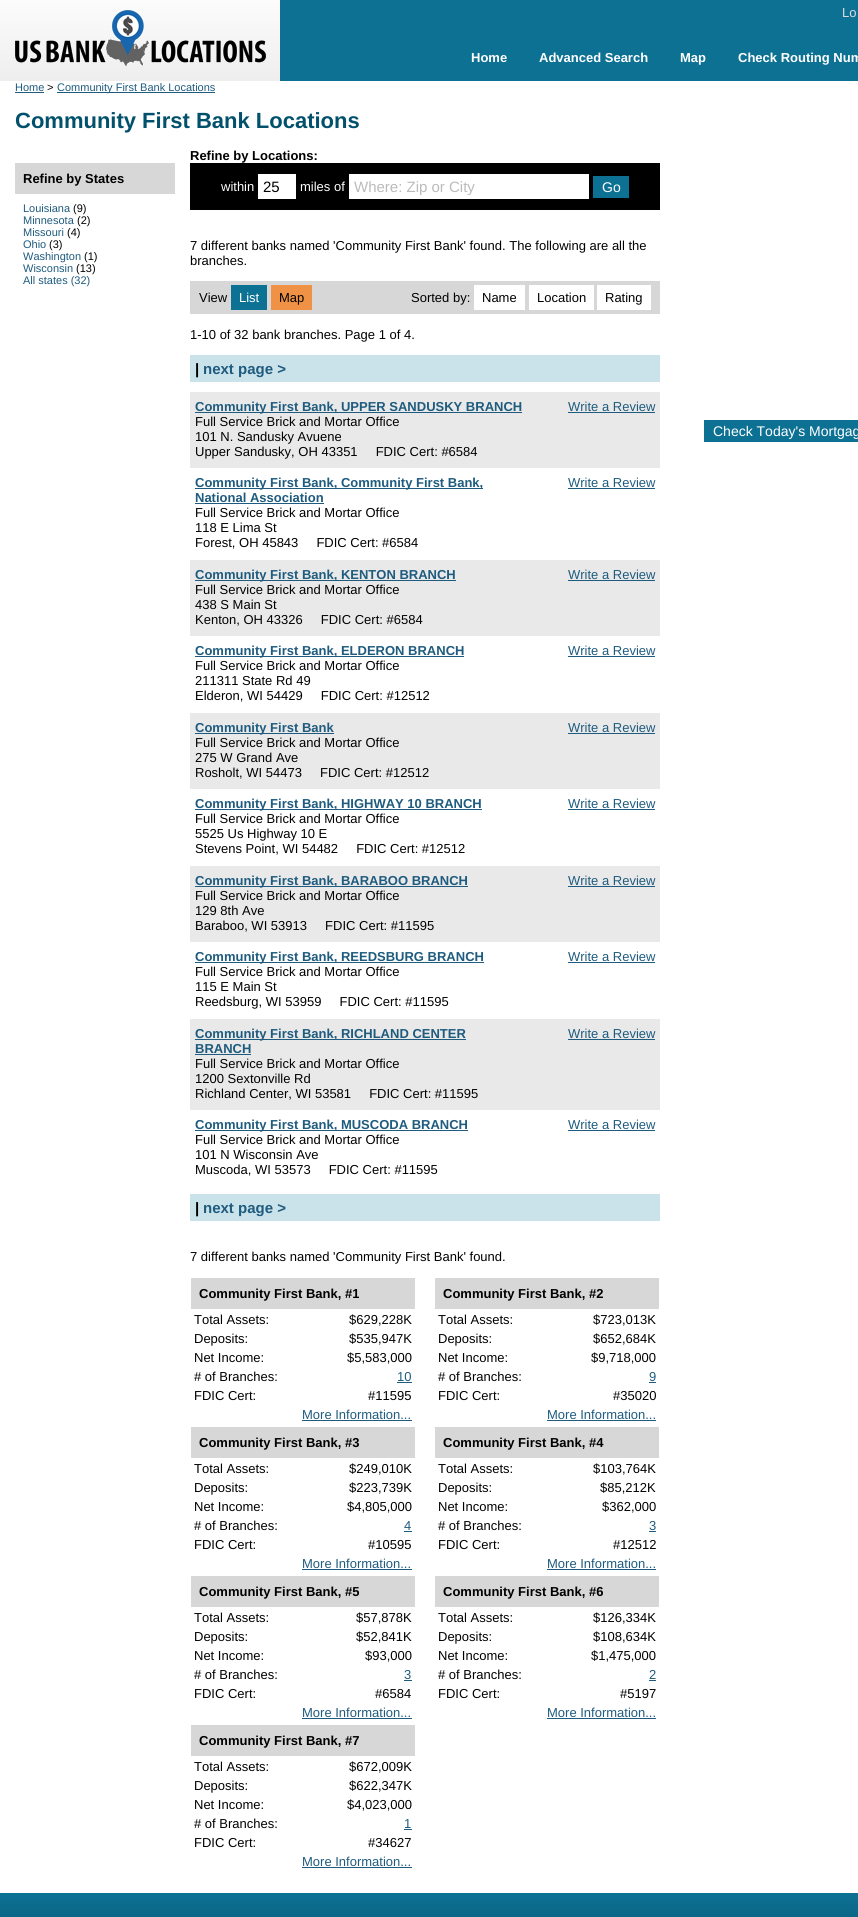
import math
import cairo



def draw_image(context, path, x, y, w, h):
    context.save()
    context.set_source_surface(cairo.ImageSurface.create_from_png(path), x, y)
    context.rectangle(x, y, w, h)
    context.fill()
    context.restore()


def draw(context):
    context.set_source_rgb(13 / 255, 113 / 255, 148 / 255)
    context.paint()
    gradient = cairo.LinearGradient(140, -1, 140, 81)
    gradient.add_color_stop_rgba(0, 252 / 255, 252 / 255, 252 / 255, 1)
    gradient.add_color_stop_rgba(1, 238 / 255, 238 / 255, 238 / 255, 1)
    context.set_source(gradient)
    context.rectangle(0, 0, 280, 81)
    context.fill()
    draw_image(context, "images/1.png", 15, 10, 251, 56)
    context.set_source_rgb(1, 1, 1)
    context.rectangle(0, 81, 858, 1812)
    context.fill()
    context.set_source_rgb(30 / 255, 91 / 255, 126 / 255)
    context.rectangle(15, 92, 29, 1)
    context.fill()
    context.rectangle(57, 92, 158, 1)
    context.fill()
    context.set_source_rgb(215 / 255, 215 / 255, 215 / 255)
    context.rectangle(15, 163, 160, 31)
    context.fill()
    context.set_source_rgb(0, 0, 0)
    context.rectangle(190, 163, 470, 47)
    context.fill()
    context.set_source_rgb(1, 1, 1)
    context.rectangle(258, 174, 38, 25)
    context.fill()
    context.rectangle(349, 174, 240, 25)
    context.fill()
    context.set_source_rgb(13 / 255, 113 / 255, 148 / 255)
    context.rectangle(593, 176, 36, 22)
    context.fill()
    context.set_source_rgb(215 / 255, 215 / 255, 215 / 255)
    context.rectangle(190, 281, 470, 33)
    context.fill()
    context.set_source_rgb(13 / 255, 113 / 255, 148 / 255)
    context.rectangle(231, 285, 36, 25)
    context.fill()
    context.set_source_rgb(240 / 255, 146 / 255, 69 / 255)
    context.rectangle(271, 285, 41, 25)
    context.fill()
    context.set_source_rgb(1, 1, 1)
    context.rectangle(474, 285, 51, 25)
    context.fill()
    context.rectangle(529, 285, 65, 25)
    context.fill()
    context.rectangle(597, 285, 54, 25)
    context.fill()
    context.set_source_rgb(202 / 255, 226 / 255, 234 / 255)
    context.rectangle(190, 355, 470, 27)
    context.fill()
    context.set_source_rgb(233 / 255, 233 / 255, 233 / 255)
    context.rectangle(190, 392, 470, 76)
    context.fill()
    context.set_source_rgb(30 / 255, 91 / 255, 126 / 255)
    context.rectangle(195, 412, 327, 1)
    context.fill()
    context.rectangle(568, 412, 87, 1)
    context.fill()
    context.rectangle(195, 488, 288, 1)
    context.fill()
    context.rectangle(568, 488, 87, 1)
    context.fill()
    context.rectangle(195, 503, 129, 1)
    context.fill()
    context.set_source_rgb(233 / 255, 233 / 255, 233 / 255)
    context.rectangle(190, 560, 470, 76)
    context.fill()
    context.set_source_rgb(30 / 255, 91 / 255, 126 / 255)
    context.rectangle(195, 580, 261, 1)
    context.fill()
    context.rectangle(568, 580, 87, 1)
    context.fill()
    context.rectangle(195, 656, 269, 1)
    context.fill()
    context.rectangle(568, 656, 87, 1)
    context.fill()
    context.set_source_rgb(233 / 255, 233 / 255, 233 / 255)
    context.rectangle(190, 713, 470, 76)
    context.fill()
    context.set_source_rgb(30 / 255, 91 / 255, 126 / 255)
    context.rectangle(195, 733, 139, 1)
    context.fill()
    context.rectangle(568, 733, 87, 1)
    context.fill()
    context.rectangle(195, 809, 287, 1)
    context.fill()
    context.rectangle(568, 809, 87, 1)
    context.fill()
    context.set_source_rgb(233 / 255, 233 / 255, 233 / 255)
    context.rectangle(190, 866, 470, 76)
    context.fill()
    context.set_source_rgb(30 / 255, 91 / 255, 126 / 255)
    context.rectangle(195, 886, 273, 1)
    context.fill()
    context.rectangle(568, 886, 87, 1)
    context.fill()
    context.rectangle(195, 962, 289, 1)
    context.fill()
    context.rectangle(568, 962, 87, 1)
    context.fill()
    context.set_source_rgb(233 / 255, 233 / 255, 233 / 255)
    context.rectangle(190, 1019, 470, 91)
    context.fill()
    context.set_source_rgb(30 / 255, 91 / 255, 126 / 255)
    context.rectangle(195, 1039, 271, 1)
    context.fill()
    context.rectangle(568, 1039, 87, 1)
    context.fill()
    context.rectangle(195, 1054, 56, 1)
    context.fill()
    context.rectangle(195, 1130, 273, 1)
    context.fill()
    context.rectangle(568, 1130, 87, 1)
    context.fill()
    context.set_source_rgb(202 / 255, 226 / 255, 234 / 255)
    context.rectangle(190, 1194, 470, 27)
    context.fill()
    context.set_source_rgb(215 / 255, 215 / 255, 215 / 255)
    context.rectangle(191, 1278, 224, 31)
    context.fill()
    context.set_source_rgb(30 / 255, 91 / 255, 126 / 255)
    context.rectangle(397, 1382, 15, 1)
    context.fill()
    context.rectangle(302, 1420, 110, 1)
    context.fill()
    context.set_source_rgb(215 / 255, 215 / 255, 215 / 255)
    context.rectangle(435, 1278, 224, 31)
    context.fill()
    context.set_source_rgb(30 / 255, 91 / 255, 126 / 255)
    context.rectangle(649, 1382, 7, 1)
    context.fill()
    context.rectangle(547, 1420, 109, 1)
    context.fill()
    context.set_source_rgb(215 / 255, 215 / 255, 215 / 255)
    context.rectangle(191, 1427, 224, 31)
    context.fill()
    context.set_source_rgb(30 / 255, 91 / 255, 126 / 255)
    context.rectangle(404, 1531, 8, 1)
    context.fill()
    context.rectangle(302, 1569, 110, 1)
    context.fill()
    context.set_source_rgb(215 / 255, 215 / 255, 215 / 255)
    context.rectangle(435, 1427, 224, 31)
    context.fill()
    context.set_source_rgb(30 / 255, 91 / 255, 126 / 255)
    context.rectangle(649, 1531, 7, 1)
    context.fill()
    context.rectangle(547, 1569, 109, 1)
    context.fill()
    context.set_source_rgb(215 / 255, 215 / 255, 215 / 255)
    context.rectangle(191, 1576, 224, 31)
    context.fill()
    context.set_source_rgb(30 / 255, 91 / 255, 126 / 255)
    context.rectangle(404, 1680, 8, 1)
    context.fill()
    context.rectangle(302, 1718, 110, 1)
    context.fill()
    context.set_source_rgb(215 / 255, 215 / 255, 215 / 255)
    context.rectangle(435, 1576, 224, 31)
    context.fill()
    context.set_source_rgb(30 / 255, 91 / 255, 126 / 255)
    context.rectangle(649, 1680, 7, 1)
    context.fill()
    context.rectangle(547, 1718, 109, 1)
    context.fill()
    context.set_source_rgb(215 / 255, 215 / 255, 215 / 255)
    context.rectangle(191, 1725, 224, 31)
    context.fill()
    context.set_source_rgb(30 / 255, 91 / 255, 126 / 255)
    context.rectangle(404, 1829, 8, 1)
    context.fill()
    context.rectangle(302, 1867, 110, 1)
    context.fill()
    context.set_source_rgb(13 / 255, 113 / 255, 148 / 255)
    context.rectangle(704, 420, 154, 22)
    context.fill()
    gradient = cairo.LinearGradient(429, 1893, 429, 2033)
    gradient.add_color_stop_rgba(0, 13 / 255, 113 / 255, 148 / 255, 1)
    gradient.add_color_stop_rgba(1, 6 / 255, 51 / 255, 67 / 255, 1)
    context.set_source(gradient)
    context.rectangle(0, 1897, 858, 20)
    context.fill()
    context.select_font_face("Liberation Sans")
    context.set_font_size(13)
    context.set_source_rgb(221 / 255, 221 / 255, 221 / 255)
    context.move_to(842, 17)
    context.show_text("Lo")
    context.select_font_face("Liberation Sans", cairo.FontSlant.NORMAL, cairo.FontWeight.BOLD)
    context.set_source_rgb(1, 1, 1)
    context.move_to(471, 62)
    context.show_text("Home")
    context.move_to(539, 62)
    context.show_text("Advanced Search")
    context.move_to(680, 62)
    context.show_text("Map")
    context.move_to(738, 62)
    context.show_text("Check Routing Num")
    context.select_font_face("Liberation Sans")
    context.set_font_size(11)
    context.set_source_rgb(30 / 255, 91 / 255, 126 / 255)
    context.move_to(15, 91)
    context.show_text("Home")
    context.set_source_rgb(0, 0, 0)
    context.move_to(47, 91)
    context.show_text(">")
    context.set_source_rgb(30 / 255, 91 / 255, 126 / 255)
    context.move_to(57, 91)
    context.show_text("Community First Bank Locations")
    context.select_font_face("Liberation Sans", cairo.FontSlant.NORMAL, cairo.FontWeight.BOLD)
    context.set_font_size(22)
    context.set_source_rgb(1 / 255, 81 / 255, 109 / 255)
    context.move_to(15, 128)
    context.show_text("Community First Bank Locations")
    context.set_font_size(13)
    context.set_source_rgb(0, 0, 0)
    context.move_to(23, 183)
    context.show_text("Refine by States")
    context.select_font_face("Liberation Sans")
    context.set_font_size(11)
    context.set_source_rgb(30 / 255, 91 / 255, 126 / 255)
    context.move_to(23, 212)
    context.show_text("Louisiana")
    context.set_source_rgb(0, 0, 0)
    context.move_to(73, 212)
    context.show_text("(9)")
    context.set_source_rgb(30 / 255, 91 / 255, 126 / 255)
    context.move_to(23, 224)
    context.show_text("Minnesota")
    context.set_source_rgb(0, 0, 0)
    context.move_to(77, 224)
    context.show_text("(2)")
    context.set_source_rgb(30 / 255, 91 / 255, 126 / 255)
    context.move_to(23, 236)
    context.show_text("Missouri")
    context.set_source_rgb(0, 0, 0)
    context.move_to(67, 236)
    context.show_text("(4)")
    context.set_source_rgb(30 / 255, 91 / 255, 126 / 255)
    context.move_to(23, 248)
    context.show_text("Ohio")
    context.set_source_rgb(0, 0, 0)
    context.move_to(49, 248)
    context.show_text("(3)")
    context.set_source_rgb(30 / 255, 91 / 255, 126 / 255)
    context.move_to(23, 260)
    context.show_text("Washington")
    context.set_source_rgb(0, 0, 0)
    context.move_to(84, 260)
    context.show_text("(1)")
    context.set_source_rgb(30 / 255, 91 / 255, 126 / 255)
    context.move_to(23, 272)
    context.show_text("Wisconsin")
    context.set_source_rgb(0, 0, 0)
    context.move_to(76, 272)
    context.show_text("(13)")
    context.set_source_rgb(30 / 255, 91 / 255, 126 / 255)
    context.move_to(23, 284)
    context.show_text("All states (32)")
    context.select_font_face("Liberation Sans", cairo.FontSlant.NORMAL, cairo.FontWeight.BOLD)
    context.set_font_size(13)
    context.set_source_rgb(0, 0, 0)
    context.move_to(190, 160)
    context.show_text("Refine by Locations:")
    context.select_font_face("Liberation Sans")
    context.set_source_rgb(1, 1, 1)
    context.move_to(221, 191)
    context.show_text("within")
    context.set_font_size(15)
    context.set_source_rgb(0, 0, 0)
    context.move_to(263, 192)
    context.show_text("25")
    context.set_font_size(13)
    context.set_source_rgb(1, 1, 1)
    context.move_to(300, 191)
    context.show_text("miles of")
    context.save()
    context.rectangle(354, 178, 230, 17)
    context.clip()
    context.set_font_size(15)
    context.set_source_rgb(187 / 255, 187 / 255, 187 / 255)
    context.move_to(354, 192)
    context.show_text("Where: Zip or City")
    context.restore()
    context.set_font_size(14)
    context.move_to(602, 192)
    context.show_text("Go")
    context.set_font_size(13)
    context.set_source_rgb(0, 0, 0)
    context.move_to(190, 250)
    context.show_text("7 different banks named 'Community First Bank' found. The following are all the")
    context.move_to(190, 265)
    context.show_text("branches.")
    context.move_to(199, 302)
    context.show_text("View")
    context.set_source_rgb(1, 1, 1)
    context.move_to(239, 302)
    context.show_text("List")
    context.set_source_rgb(0, 0, 0)
    context.move_to(279, 302)
    context.show_text("Map")
    context.move_to(411, 302)
    context.show_text("Sorted by:")
    context.move_to(482, 302)
    context.show_text("Name")
    context.move_to(537, 302)
    context.show_text("Location")
    context.move_to(605, 302)
    context.show_text("Rating")
    context.move_to(190, 339)
    context.show_text("1-10 of 32 bank branches. Page 1 of 4.")
    context.select_font_face("Liberation Sans", cairo.FontSlant.NORMAL, cairo.FontWeight.BOLD)
    context.set_font_size(15)
    context.move_to(195, 374)
    context.show_text("|")
    context.set_source_rgb(30 / 255, 91 / 255, 126 / 255)
    context.move_to(203, 374)
    context.show_text("next page >")
    context.set_font_size(13)
    context.move_to(195, 411)
    context.show_text("Community First Bank, UPPER SANDUSKY BRANCH")
    context.select_font_face("Liberation Sans")
    context.move_to(568, 411)
    context.show_text("Write a Review")
    context.set_source_rgb(0, 0, 0)
    context.move_to(195, 426)
    context.show_text("Full Service Brick and Mortar Office")
    context.move_to(195, 441)
    context.show_text("101 N. Sandusky Avuene")
    context.move_to(195, 456)
    context.show_text("Upper Sandusky, OH 43351     FDIC Cert: #6584")
    context.select_font_face("Liberation Sans", cairo.FontSlant.NORMAL, cairo.FontWeight.BOLD)
    context.set_source_rgb(30 / 255, 91 / 255, 126 / 255)
    context.move_to(195, 487)
    context.show_text("Community First Bank, Community First Bank,")
    context.select_font_face("Liberation Sans")
    context.move_to(568, 487)
    context.show_text("Write a Review")
    context.select_font_face("Liberation Sans", cairo.FontSlant.NORMAL, cairo.FontWeight.BOLD)
    context.move_to(195, 502)
    context.show_text("National Association")
    context.select_font_face("Liberation Sans")
    context.set_source_rgb(0, 0, 0)
    context.move_to(195, 517)
    context.show_text("Full Service Brick and Mortar Office")
    context.move_to(195, 532)
    context.show_text("118 E Lima St")
    context.move_to(195, 547)
    context.show_text("Forest, OH 45843     FDIC Cert: #6584")
    context.select_font_face("Liberation Sans", cairo.FontSlant.NORMAL, cairo.FontWeight.BOLD)
    context.set_source_rgb(30 / 255, 91 / 255, 126 / 255)
    context.move_to(195, 579)
    context.show_text("Community First Bank, KENTON BRANCH")
    context.select_font_face("Liberation Sans")
    context.move_to(568, 579)
    context.show_text("Write a Review")
    context.set_source_rgb(0, 0, 0)
    context.move_to(195, 594)
    context.show_text("Full Service Brick and Mortar Office")
    context.move_to(195, 609)
    context.show_text("438 S Main St")
    context.move_to(195, 624)
    context.show_text("Kenton, OH 43326     FDIC Cert: #6584")
    context.select_font_face("Liberation Sans", cairo.FontSlant.NORMAL, cairo.FontWeight.BOLD)
    context.set_source_rgb(30 / 255, 91 / 255, 126 / 255)
    context.move_to(195, 655)
    context.show_text("Community First Bank, ELDERON BRANCH")
    context.select_font_face("Liberation Sans")
    context.move_to(568, 655)
    context.show_text("Write a Review")
    context.set_source_rgb(0, 0, 0)
    context.move_to(195, 670)
    context.show_text("Full Service Brick and Mortar Office")
    context.move_to(195, 685)
    context.show_text("211311 State Rd 49")
    context.move_to(195, 700)
    context.show_text("Elderon, WI 54429     FDIC Cert: #12512")
    context.select_font_face("Liberation Sans", cairo.FontSlant.NORMAL, cairo.FontWeight.BOLD)
    context.set_source_rgb(30 / 255, 91 / 255, 126 / 255)
    context.move_to(195, 732)
    context.show_text("Community First Bank")
    context.select_font_face("Liberation Sans")
    context.move_to(568, 732)
    context.show_text("Write a Review")
    context.set_source_rgb(0, 0, 0)
    context.move_to(195, 747)
    context.show_text("Full Service Brick and Mortar Office")
    context.move_to(195, 762)
    context.show_text("275 W Grand Ave")
    context.move_to(195, 777)
    context.show_text("Rosholt, WI 54473     FDIC Cert: #12512")
    context.select_font_face("Liberation Sans", cairo.FontSlant.NORMAL, cairo.FontWeight.BOLD)
    context.set_source_rgb(30 / 255, 91 / 255, 126 / 255)
    context.move_to(195, 808)
    context.show_text("Community First Bank, HIGHWAY 10 BRANCH")
    context.select_font_face("Liberation Sans")
    context.move_to(568, 808)
    context.show_text("Write a Review")
    context.set_source_rgb(0, 0, 0)
    context.move_to(195, 823)
    context.show_text("Full Service Brick and Mortar Office")
    context.move_to(195, 838)
    context.show_text("5525 Us Highway 10 E")
    context.move_to(195, 853)
    context.show_text("Stevens Point, WI 54482     FDIC Cert: #12512")
    context.select_font_face("Liberation Sans", cairo.FontSlant.NORMAL, cairo.FontWeight.BOLD)
    context.set_source_rgb(30 / 255, 91 / 255, 126 / 255)
    context.move_to(195, 885)
    context.show_text("Community First Bank, BARABOO BRANCH")
    context.select_font_face("Liberation Sans")
    context.move_to(568, 885)
    context.show_text("Write a Review")
    context.set_source_rgb(0, 0, 0)
    context.move_to(195, 900)
    context.show_text("Full Service Brick and Mortar Office")
    context.move_to(195, 915)
    context.show_text("129 8th Ave")
    context.move_to(195, 930)
    context.show_text("Baraboo, WI 53913     FDIC Cert: #11595")
    context.select_font_face("Liberation Sans", cairo.FontSlant.NORMAL, cairo.FontWeight.BOLD)
    context.set_source_rgb(30 / 255, 91 / 255, 126 / 255)
    context.move_to(195, 961)
    context.show_text("Community First Bank, REEDSBURG BRANCH")
    context.select_font_face("Liberation Sans")
    context.move_to(568, 961)
    context.show_text("Write a Review")
    context.set_source_rgb(0, 0, 0)
    context.move_to(195, 976)
    context.show_text("Full Service Brick and Mortar Office")
    context.move_to(195, 991)
    context.show_text("115 E Main St")
    context.move_to(195, 1006)
    context.show_text("Reedsburg, WI 53959     FDIC Cert: #11595")
    context.select_font_face("Liberation Sans", cairo.FontSlant.NORMAL, cairo.FontWeight.BOLD)
    context.set_source_rgb(30 / 255, 91 / 255, 126 / 255)
    context.move_to(195, 1038)
    context.show_text("Community First Bank, RICHLAND CENTER")
    context.select_font_face("Liberation Sans")
    context.move_to(568, 1038)
    context.show_text("Write a Review")
    context.select_font_face("Liberation Sans", cairo.FontSlant.NORMAL, cairo.FontWeight.BOLD)
    context.move_to(195, 1053)
    context.show_text("BRANCH")
    context.select_font_face("Liberation Sans")
    context.set_source_rgb(0, 0, 0)
    context.move_to(195, 1068)
    context.show_text("Full Service Brick and Mortar Office")
    context.move_to(195, 1083)
    context.show_text("1200 Sextonville Rd")
    context.move_to(195, 1098)
    context.show_text("Richland Center, WI 53581     FDIC Cert: #11595")
    context.select_font_face("Liberation Sans", cairo.FontSlant.NORMAL, cairo.FontWeight.BOLD)
    context.set_source_rgb(30 / 255, 91 / 255, 126 / 255)
    context.move_to(195, 1129)
    context.show_text("Community First Bank, MUSCODA BRANCH")
    context.select_font_face("Liberation Sans")
    context.move_to(568, 1129)
    context.show_text("Write a Review")
    context.set_source_rgb(0, 0, 0)
    context.move_to(195, 1144)
    context.show_text("Full Service Brick and Mortar Office")
    context.move_to(195, 1159)
    context.show_text("101 N Wisconsin Ave")
    context.move_to(195, 1174)
    context.show_text("Muscoda, WI 53573     FDIC Cert: #11595")
    context.select_font_face("Liberation Sans", cairo.FontSlant.NORMAL, cairo.FontWeight.BOLD)
    context.set_font_size(15)
    context.move_to(195, 1213)
    context.show_text("|")
    context.set_source_rgb(30 / 255, 91 / 255, 126 / 255)
    context.move_to(203, 1213)
    context.show_text("next page >")
    context.select_font_face("Liberation Sans")
    context.set_font_size(13)
    context.set_source_rgb(0, 0, 0)
    context.move_to(190, 1261)
    context.show_text("7 different banks named 'Community First Bank' found.")
    context.select_font_face("Liberation Sans", cairo.FontSlant.NORMAL, cairo.FontWeight.BOLD)
    context.move_to(199, 1298)
    context.show_text("Community First Bank, #1")
    context.select_font_face("Liberation Sans")
    context.move_to(194, 1324)
    context.show_text("Total Assets:")
    context.move_to(349, 1324)
    context.show_text("$629,228K")
    context.move_to(194, 1343)
    context.show_text("Deposits:")
    context.move_to(349, 1343)
    context.show_text("$535,947K")
    context.move_to(194, 1362)
    context.show_text("Net Income:")
    context.move_to(347, 1362)
    context.show_text("$5,583,000")
    context.move_to(194, 1381)
    context.show_text("# of Branches:")
    context.set_source_rgb(30 / 255, 91 / 255, 126 / 255)
    context.move_to(397, 1381)
    context.show_text("10")
    context.set_source_rgb(0, 0, 0)
    context.move_to(194, 1400)
    context.show_text("FDIC Cert:")
    context.move_to(368, 1400)
    context.show_text("#11595")
    context.set_source_rgb(30 / 255, 91 / 255, 126 / 255)
    context.move_to(302, 1419)
    context.show_text("More Information...")
    context.select_font_face("Liberation Sans", cairo.FontSlant.NORMAL, cairo.FontWeight.BOLD)
    context.set_source_rgb(0, 0, 0)
    context.move_to(443, 1298)
    context.show_text("Community First Bank, #2")
    context.select_font_face("Liberation Sans")
    context.move_to(438, 1324)
    context.show_text("Total Assets:")
    context.move_to(593, 1324)
    context.show_text("$723,013K")
    context.move_to(438, 1343)
    context.show_text("Deposits:")
    context.move_to(593, 1343)
    context.show_text("$652,684K")
    context.move_to(438, 1362)
    context.show_text("Net Income:")
    context.move_to(591, 1362)
    context.show_text("$9,718,000")
    context.move_to(438, 1381)
    context.show_text("# of Branches:")
    context.set_source_rgb(30 / 255, 91 / 255, 126 / 255)
    context.move_to(649, 1381)
    context.show_text("9")
    context.set_source_rgb(0, 0, 0)
    context.move_to(438, 1400)
    context.show_text("FDIC Cert:")
    context.move_to(613, 1400)
    context.show_text("#35020")
    context.set_source_rgb(30 / 255, 91 / 255, 126 / 255)
    context.move_to(547, 1419)
    context.show_text("More Information...")
    context.select_font_face("Liberation Sans", cairo.FontSlant.NORMAL, cairo.FontWeight.BOLD)
    context.set_source_rgb(0, 0, 0)
    context.move_to(199, 1447)
    context.show_text("Community First Bank, #3")
    context.select_font_face("Liberation Sans")
    context.move_to(194, 1473)
    context.show_text("Total Assets:")
    context.move_to(349, 1473)
    context.show_text("$249,010K")
    context.move_to(194, 1492)
    context.show_text("Deposits:")
    context.move_to(349, 1492)
    context.show_text("$223,739K")
    context.move_to(194, 1511)
    context.show_text("Net Income:")
    context.move_to(347, 1511)
    context.show_text("$4,805,000")
    context.move_to(194, 1530)
    context.show_text("# of Branches:")
    context.set_source_rgb(30 / 255, 91 / 255, 126 / 255)
    context.move_to(404, 1530)
    context.show_text("4")
    context.set_source_rgb(0, 0, 0)
    context.move_to(194, 1549)
    context.show_text("FDIC Cert:")
    context.move_to(368, 1549)
    context.show_text("#10595")
    context.set_source_rgb(30 / 255, 91 / 255, 126 / 255)
    context.move_to(302, 1568)
    context.show_text("More Information...")
    context.select_font_face("Liberation Sans", cairo.FontSlant.NORMAL, cairo.FontWeight.BOLD)
    context.set_source_rgb(0, 0, 0)
    context.move_to(443, 1447)
    context.show_text("Community First Bank, #4")
    context.select_font_face("Liberation Sans")
    context.move_to(438, 1473)
    context.show_text("Total Assets:")
    context.move_to(593, 1473)
    context.show_text("$103,764K")
    context.move_to(438, 1492)
    context.show_text("Deposits:")
    context.move_to(600, 1492)
    context.show_text("$85,212K")
    context.move_to(438, 1511)
    context.show_text("Net Income:")
    context.move_to(602, 1511)
    context.show_text("$362,000")
    context.move_to(438, 1530)
    context.show_text("# of Branches:")
    context.set_source_rgb(30 / 255, 91 / 255, 126 / 255)
    context.move_to(649, 1530)
    context.show_text("3")
    context.set_source_rgb(0, 0, 0)
    context.move_to(438, 1549)
    context.show_text("FDIC Cert:")
    context.move_to(613, 1549)
    context.show_text("#12512")
    context.set_source_rgb(30 / 255, 91 / 255, 126 / 255)
    context.move_to(547, 1568)
    context.show_text("More Information...")
    context.select_font_face("Liberation Sans", cairo.FontSlant.NORMAL, cairo.FontWeight.BOLD)
    context.set_source_rgb(0, 0, 0)
    context.move_to(199, 1596)
    context.show_text("Community First Bank, #5")
    context.select_font_face("Liberation Sans")
    context.move_to(194, 1622)
    context.show_text("Total Assets:")
    context.move_to(356, 1622)
    context.show_text("$57,878K")
    context.move_to(194, 1641)
    context.show_text("Deposits:")
    context.move_to(356, 1641)
    context.show_text("$52,841K")
    context.move_to(194, 1660)
    context.show_text("Net Income:")
    context.move_to(365, 1660)
    context.show_text("$93,000")
    context.move_to(194, 1679)
    context.show_text("# of Branches:")
    context.set_source_rgb(30 / 255, 91 / 255, 126 / 255)
    context.move_to(404, 1679)
    context.show_text("3")
    context.set_source_rgb(0, 0, 0)
    context.move_to(194, 1698)
    context.show_text("FDIC Cert:")
    context.move_to(375, 1698)
    context.show_text("#6584")
    context.set_source_rgb(30 / 255, 91 / 255, 126 / 255)
    context.move_to(302, 1717)
    context.show_text("More Information...")
    context.select_font_face("Liberation Sans", cairo.FontSlant.NORMAL, cairo.FontWeight.BOLD)
    context.set_source_rgb(0, 0, 0)
    context.move_to(443, 1596)
    context.show_text("Community First Bank, #6")
    context.select_font_face("Liberation Sans")
    context.move_to(438, 1622)
    context.show_text("Total Assets:")
    context.move_to(593, 1622)
    context.show_text("$126,334K")
    context.move_to(438, 1641)
    context.show_text("Deposits:")
    context.move_to(593, 1641)
    context.show_text("$108,634K")
    context.move_to(438, 1660)
    context.show_text("Net Income:")
    context.move_to(591, 1660)
    context.show_text("$1,475,000")
    context.move_to(438, 1679)
    context.show_text("# of Branches:")
    context.set_source_rgb(30 / 255, 91 / 255, 126 / 255)
    context.move_to(649, 1679)
    context.show_text("2")
    context.set_source_rgb(0, 0, 0)
    context.move_to(438, 1698)
    context.show_text("FDIC Cert:")
    context.move_to(620, 1698)
    context.show_text("#5197")
    context.set_source_rgb(30 / 255, 91 / 255, 126 / 255)
    context.move_to(547, 1717)
    context.show_text("More Information...")
    context.select_font_face("Liberation Sans", cairo.FontSlant.NORMAL, cairo.FontWeight.BOLD)
    context.set_source_rgb(0, 0, 0)
    context.move_to(199, 1745)
    context.show_text("Community First Bank, #7")
    context.select_font_face("Liberation Sans")
    context.move_to(194, 1771)
    context.show_text("Total Assets:")
    context.move_to(349, 1771)
    context.show_text("$672,009K")
    context.move_to(194, 1790)
    context.show_text("Deposits:")
    context.move_to(349, 1790)
    context.show_text("$622,347K")
    context.move_to(194, 1809)
    context.show_text("Net Income:")
    context.move_to(347, 1809)
    context.show_text("$4,023,000")
    context.move_to(194, 1828)
    context.show_text("# of Branches:")
    context.set_source_rgb(30 / 255, 91 / 255, 126 / 255)
    context.move_to(404, 1828)
    context.show_text("1")
    context.set_source_rgb(0, 0, 0)
    context.move_to(194, 1847)
    context.show_text("FDIC Cert:")
    context.move_to(368, 1847)
    context.show_text("#34627")
    context.set_source_rgb(30 / 255, 91 / 255, 126 / 255)
    context.move_to(302, 1866)
    context.show_text("More Information...")
    context.set_font_size(14)
    context.set_source_rgb(1, 1, 1)
    context.move_to(713, 436)
    context.show_text("Check Today's Mortgag")


surface = cairo.ImageSurface(cairo.Format.RGB24, 858, 1917)
context = cairo.Context(surface)
options = cairo.FontOptions()
options.set_hint_metrics(cairo.HintMetrics.OFF)
options.set_hint_style(cairo.HintStyle.NONE)
context.set_font_options(options)
context.set_miter_limit(4)
draw(context)
surface.write_to_png("out.png")
